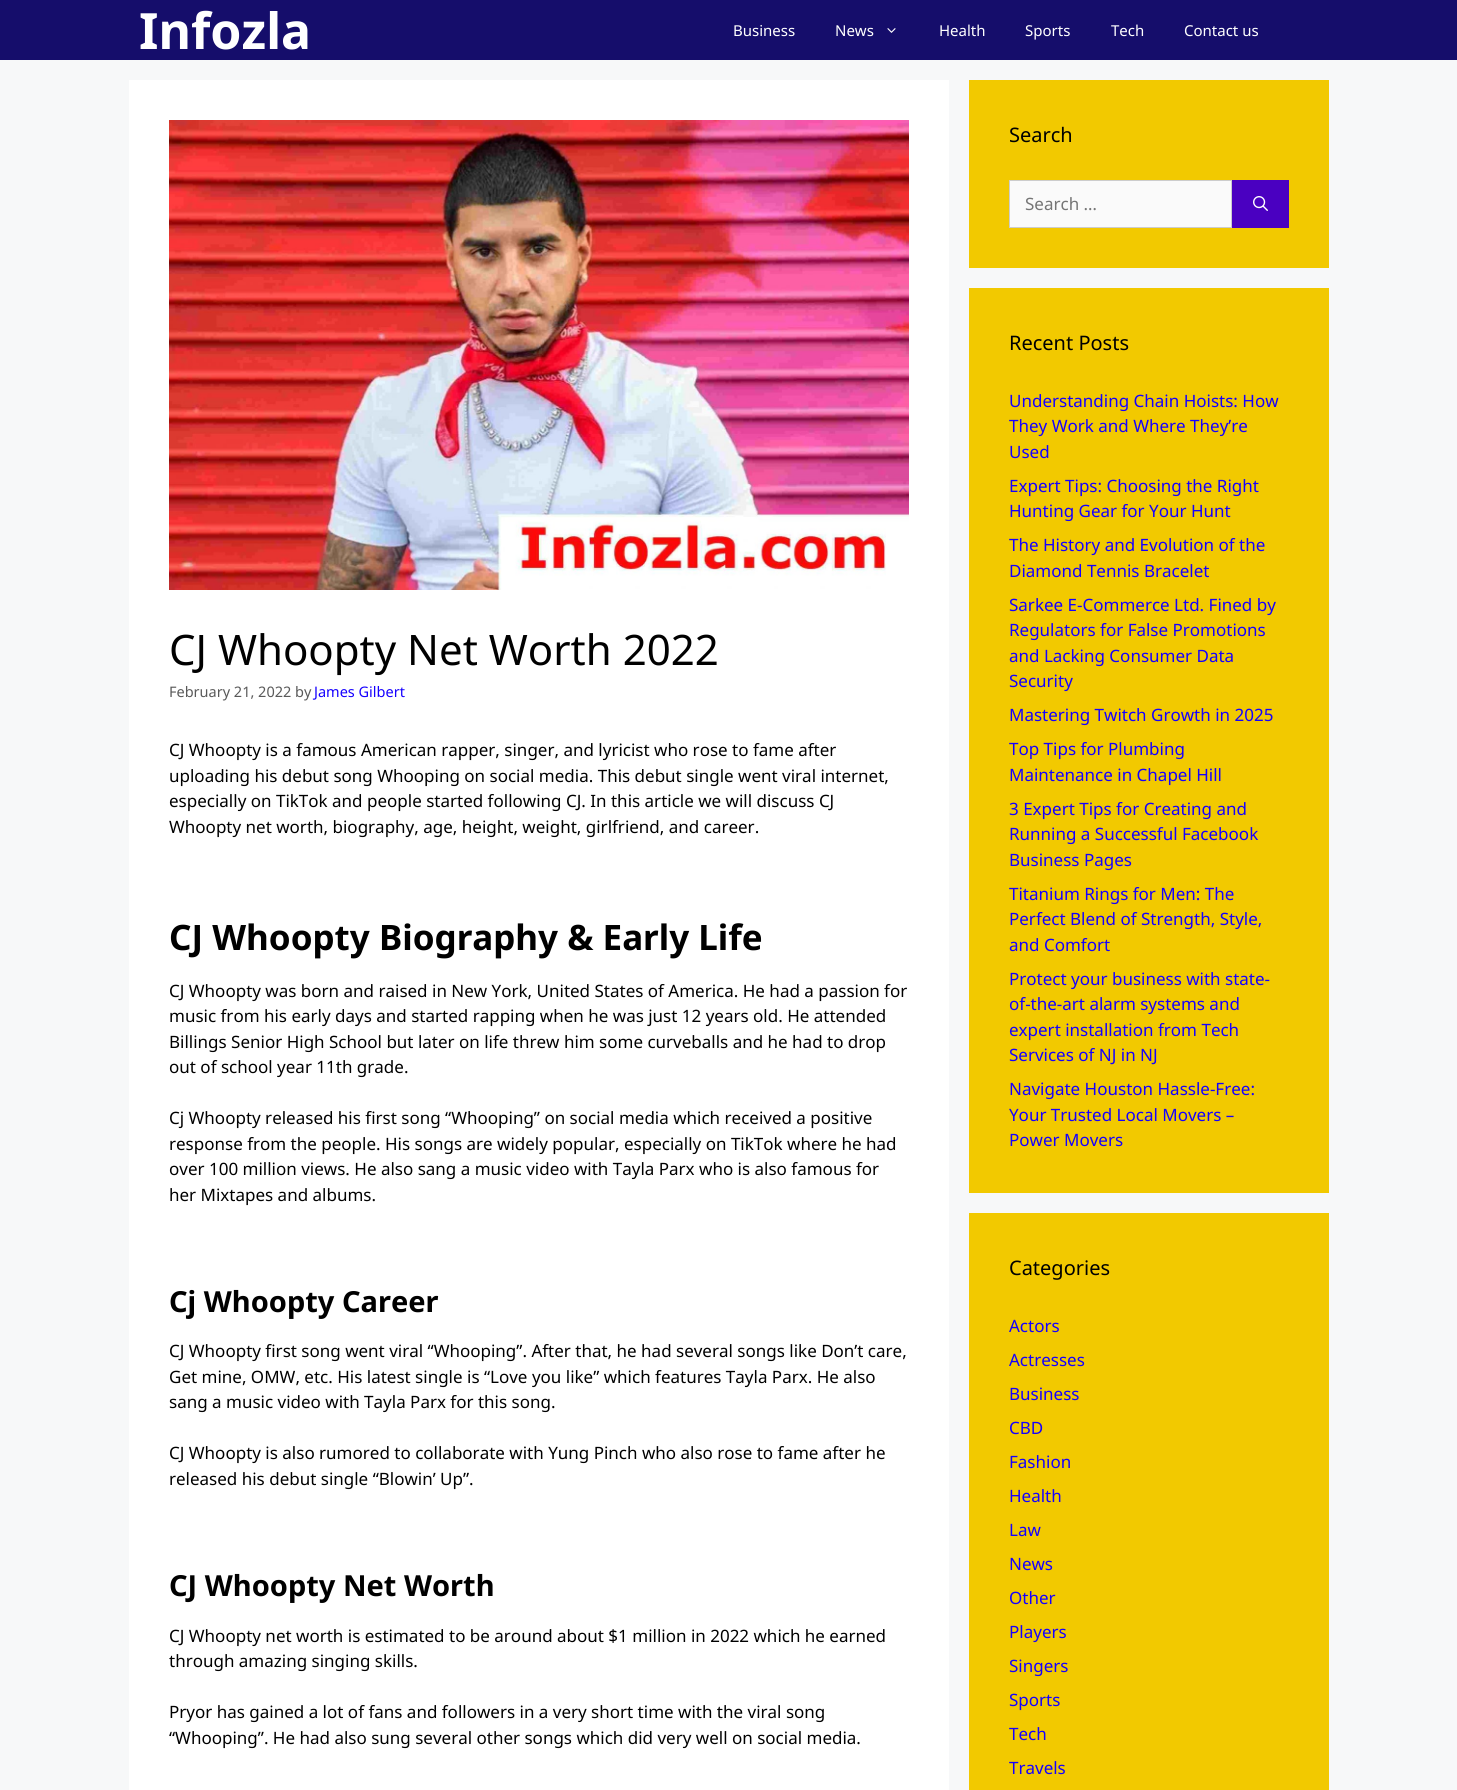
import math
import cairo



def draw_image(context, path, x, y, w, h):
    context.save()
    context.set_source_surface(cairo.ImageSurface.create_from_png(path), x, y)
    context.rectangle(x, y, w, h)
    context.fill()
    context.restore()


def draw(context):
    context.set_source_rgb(247 / 255, 248 / 255, 249 / 255)
    context.paint()
    context.set_source_rgb(21 / 255, 13 / 255, 107 / 255)
    context.rectangle(0, 0, 1457, 60)
    context.fill()
    draw_image(context, "images/1.png", 887, 28, 9, 5)
    context.set_source_rgb(1, 1, 1)
    context.rectangle(129, 80, 820, 1710)
    context.fill()
    draw_image(context, "images/2.png", 169, 120, 740, 470)
    context.set_source_rgb(242 / 255, 201 / 255, 0)
    context.rectangle(969, 80, 360, 188)
    context.fill()
    context.set_source_rgb(250 / 255, 250 / 255, 250 / 255)
    context.rectangle(1009.5, 180.5, 222, 47)
    context.fill_preserve()
    context.set_source_rgb(204 / 255, 204 / 255, 204 / 255)
    context.set_line_width(1)
    context.stroke()
    context.set_source_rgb(74 / 255, 0, 193 / 255)
    context.rectangle(1232, 180, 57, 48)
    context.fill()
    draw_image(context, "images/3.png", 1253, 196, 15, 15)
    context.set_source_rgb(242 / 255, 201 / 255, 0)
    context.rectangle(969, 288, 360, 905)
    context.fill()
    context.rectangle(969, 1213, 360, 577)
    context.fill()
    context.select_font_face("Noto Sans", cairo.FontSlant.NORMAL, cairo.FontWeight.BOLD)
    context.set_font_size(50)
    context.set_source_rgb(1, 1, 1)
    context.move_to(139, 49)
    context.show_text("Infozla")
    context.select_font_face("Noto Sans")
    context.set_font_size(15)
    context.move_to(733, 36)
    context.show_text("Business")
    context.move_to(835, 36)
    context.show_text("News")
    context.move_to(939, 36)
    context.show_text("Health")
    context.move_to(1025, 36)
    context.show_text("Sports")
    context.move_to(1111, 36)
    context.show_text("Tech")
    context.move_to(1184, 36)
    context.show_text("Contact us")
    context.set_font_size(42)
    context.set_source_rgb(0, 0, 0)
    context.move_to(169, 665)
    context.show_text("CJ Whoopty Net Worth 2022")
    context.set_font_size(14.5)
    context.set_source_rgb(89 / 255, 89 / 255, 89 / 255)
    context.move_to(169, 697)
    context.show_text("February 21, 2022 by")
    context.set_source_rgb(21 / 255, 0, 1)
    context.move_to(314, 697)
    context.show_text("James Gilbert")
    context.set_font_size(17)
    context.set_source_rgb(0, 0, 0)
    context.move_to(169, 756)
    context.show_text("CJ Whoopty is a famous American rapper, singer, and lyricist who rose to fame after")
    context.move_to(169, 782)
    context.show_text("uploading his debut song Whooping on social media. This debut single went viral internet,")
    context.move_to(169, 807)
    context.show_text("especially on TikTok and people started following CJ. In this article we will discuss CJ")
    context.move_to(169, 833)
    context.show_text("Whoopty net worth, biography, age, height, weight, girlfriend, and career.")
    context.select_font_face("Noto Sans", cairo.FontSlant.NORMAL, cairo.FontWeight.BOLD)
    context.set_font_size(35)
    context.move_to(169, 950)
    context.show_text("CJ Whoopty Biography & Early Life")
    context.select_font_face("Noto Sans")
    context.set_font_size(17)
    context.move_to(169, 997)
    context.show_text("CJ Whoopty was born and raised in New York, United States of America. He had a passion for")
    context.move_to(169, 1022)
    context.show_text("music from his early days and started rapping when he was just 12 years old. He attended")
    context.move_to(169, 1048)
    context.show_text("Billings Senior High School but later on life threw him some curveballs and he had to drop")
    context.move_to(169, 1073)
    context.show_text("out of school year 11th grade.")
    context.move_to(169, 1124)
    context.show_text("Cj Whoopty released his first song “Whooping” on social media which received a positive")
    context.move_to(169, 1150)
    context.show_text("response from the people. His songs are widely popular, especially on TikTok where he had")
    context.move_to(169, 1175)
    context.show_text("over 100 million views. He also sang a music video with Tayla Parx who is also famous for")
    context.move_to(169, 1201)
    context.show_text("her Mixtapes and albums.")
    context.select_font_face("Noto Sans", cairo.FontSlant.NORMAL, cairo.FontWeight.BOLD)
    context.set_font_size(29)
    context.move_to(169, 1312)
    context.show_text("Cj Whoopty Career")
    context.select_font_face("Noto Sans")
    context.set_font_size(17)
    context.move_to(169, 1357)
    context.show_text("CJ Whoopty first song went viral “Whooping”. After that, he had several songs like Don’t care,")
    context.move_to(169, 1383)
    context.show_text("Get mine, OMW, etc. His latest single is “Love you like” which features Tayla Parx. He also")
    context.move_to(169, 1408)
    context.show_text("sang a music video with Tayla Parx for this song.")
    context.move_to(169, 1459)
    context.show_text("CJ Whoopty is also rumored to collaborate with Yung Pinch who also rose to fame after he")
    context.move_to(169, 1485)
    context.show_text("released his debut single “Blowin’ Up”.")
    context.select_font_face("Noto Sans", cairo.FontSlant.NORMAL, cairo.FontWeight.BOLD)
    context.set_font_size(29)
    context.move_to(169, 1596)
    context.show_text("CJ Whoopty Net Worth")
    context.select_font_face("Noto Sans")
    context.set_font_size(17)
    context.move_to(169, 1642)
    context.show_text("CJ Whoopty net worth is estimated to be around about $1 million in 2022 which he earned")
    context.move_to(169, 1667)
    context.show_text("through amazing singing skills.")
    context.move_to(169, 1718)
    context.show_text("Pryor has gained a lot of fans and followers in a very short time with the viral song")
    context.move_to(169, 1744)
    context.show_text("“Whooping”. He had also sung several other songs which did very well on social media.")
    context.set_font_size(20)
    context.move_to(1009, 142)
    context.show_text("Search")
    context.set_font_size(17)
    context.set_source_rgb(117 / 255, 117 / 255, 117 / 255)
    context.move_to(1025, 210)
    context.show_text("Search …")
    context.set_font_size(20)
    context.set_source_rgb(0, 0, 0)
    context.move_to(1009, 350)
    context.show_text("Recent Posts")
    context.set_font_size(17)
    context.set_source_rgb(21 / 255, 0, 1)
    context.move_to(1009, 407)
    context.show_text("Understanding Chain Hoists: How")
    context.move_to(1009, 432)
    context.show_text("They Work and Where They’re")
    context.move_to(1009, 458)
    context.show_text("Used")
    context.move_to(1009, 492)
    context.show_text("Expert Tips: Choosing the Right")
    context.move_to(1009, 517)
    context.show_text("Hunting Gear for Your Hunt")
    context.move_to(1009, 551)
    context.show_text("The History and Evolution of the")
    context.move_to(1009, 577)
    context.show_text("Diamond Tennis Bracelet")
    context.move_to(1009, 611)
    context.show_text("Sarkee E-Commerce Ltd. Fined by")
    context.move_to(1009, 636)
    context.show_text("Regulators for False Promotions")
    context.move_to(1009, 662)
    context.show_text("and Lacking Consumer Data")
    context.move_to(1009, 687)
    context.show_text("Security")
    context.move_to(1009, 721)
    context.show_text("Mastering Twitch Growth in 2025")
    context.move_to(1009, 755)
    context.show_text("Top Tips for Plumbing")
    context.move_to(1009, 781)
    context.show_text("Maintenance in Chapel Hill")
    context.move_to(1009, 815)
    context.show_text("3 Expert Tips for Creating and")
    context.move_to(1009, 840)
    context.show_text("Running a Successful Facebook")
    context.move_to(1009, 866)
    context.show_text("Business Pages")
    context.move_to(1009, 900)
    context.show_text("Titanium Rings for Men: The")
    context.move_to(1009, 925)
    context.show_text("Perfect Blend of Strength, Style,")
    context.move_to(1009, 951)
    context.show_text("and Comfort")
    context.move_to(1009, 985)
    context.show_text("Protect your business with state-")
    context.move_to(1009, 1010)
    context.show_text("of-the-art alarm systems and")
    context.move_to(1009, 1036)
    context.show_text("expert installation from Tech")
    context.move_to(1009, 1061)
    context.show_text("Services of NJ in NJ")
    context.move_to(1009, 1095)
    context.show_text("Navigate Houston Hassle-Free:")
    context.move_to(1009, 1121)
    context.show_text("Your Trusted Local Movers –")
    context.move_to(1009, 1146)
    context.show_text("Power Movers")
    context.set_font_size(20)
    context.set_source_rgb(0, 0, 0)
    context.move_to(1009, 1275)
    context.show_text("Categories")
    context.set_font_size(17)
    context.set_source_rgb(21 / 255, 0, 1)
    context.move_to(1009, 1332)
    context.show_text("Actors")
    context.move_to(1009, 1366)
    context.show_text("Actresses")
    context.move_to(1009, 1400)
    context.show_text("Business")
    context.move_to(1009, 1434)
    context.show_text("CBD")
    context.move_to(1009, 1468)
    context.show_text("Fashion")
    context.move_to(1009, 1502)
    context.show_text("Health")
    context.move_to(1009, 1536)
    context.show_text("Law")
    context.move_to(1009, 1570)
    context.show_text("News")
    context.move_to(1009, 1604)
    context.show_text("Other")
    context.move_to(1009, 1638)
    context.show_text("Players")
    context.move_to(1009, 1672)
    context.show_text("Singers")
    context.move_to(1009, 1706)
    context.show_text("Sports")
    context.move_to(1009, 1740)
    context.show_text("Tech")
    context.move_to(1009, 1774)
    context.show_text("Travels")


surface = cairo.ImageSurface(cairo.Format.RGB24, 1457, 1790)
context = cairo.Context(surface)
options = cairo.FontOptions()
options.set_hint_metrics(cairo.HintMetrics.OFF)
options.set_hint_style(cairo.HintStyle.NONE)
context.set_font_options(options)
context.set_miter_limit(4)
draw(context)
surface.write_to_png("out.png")
